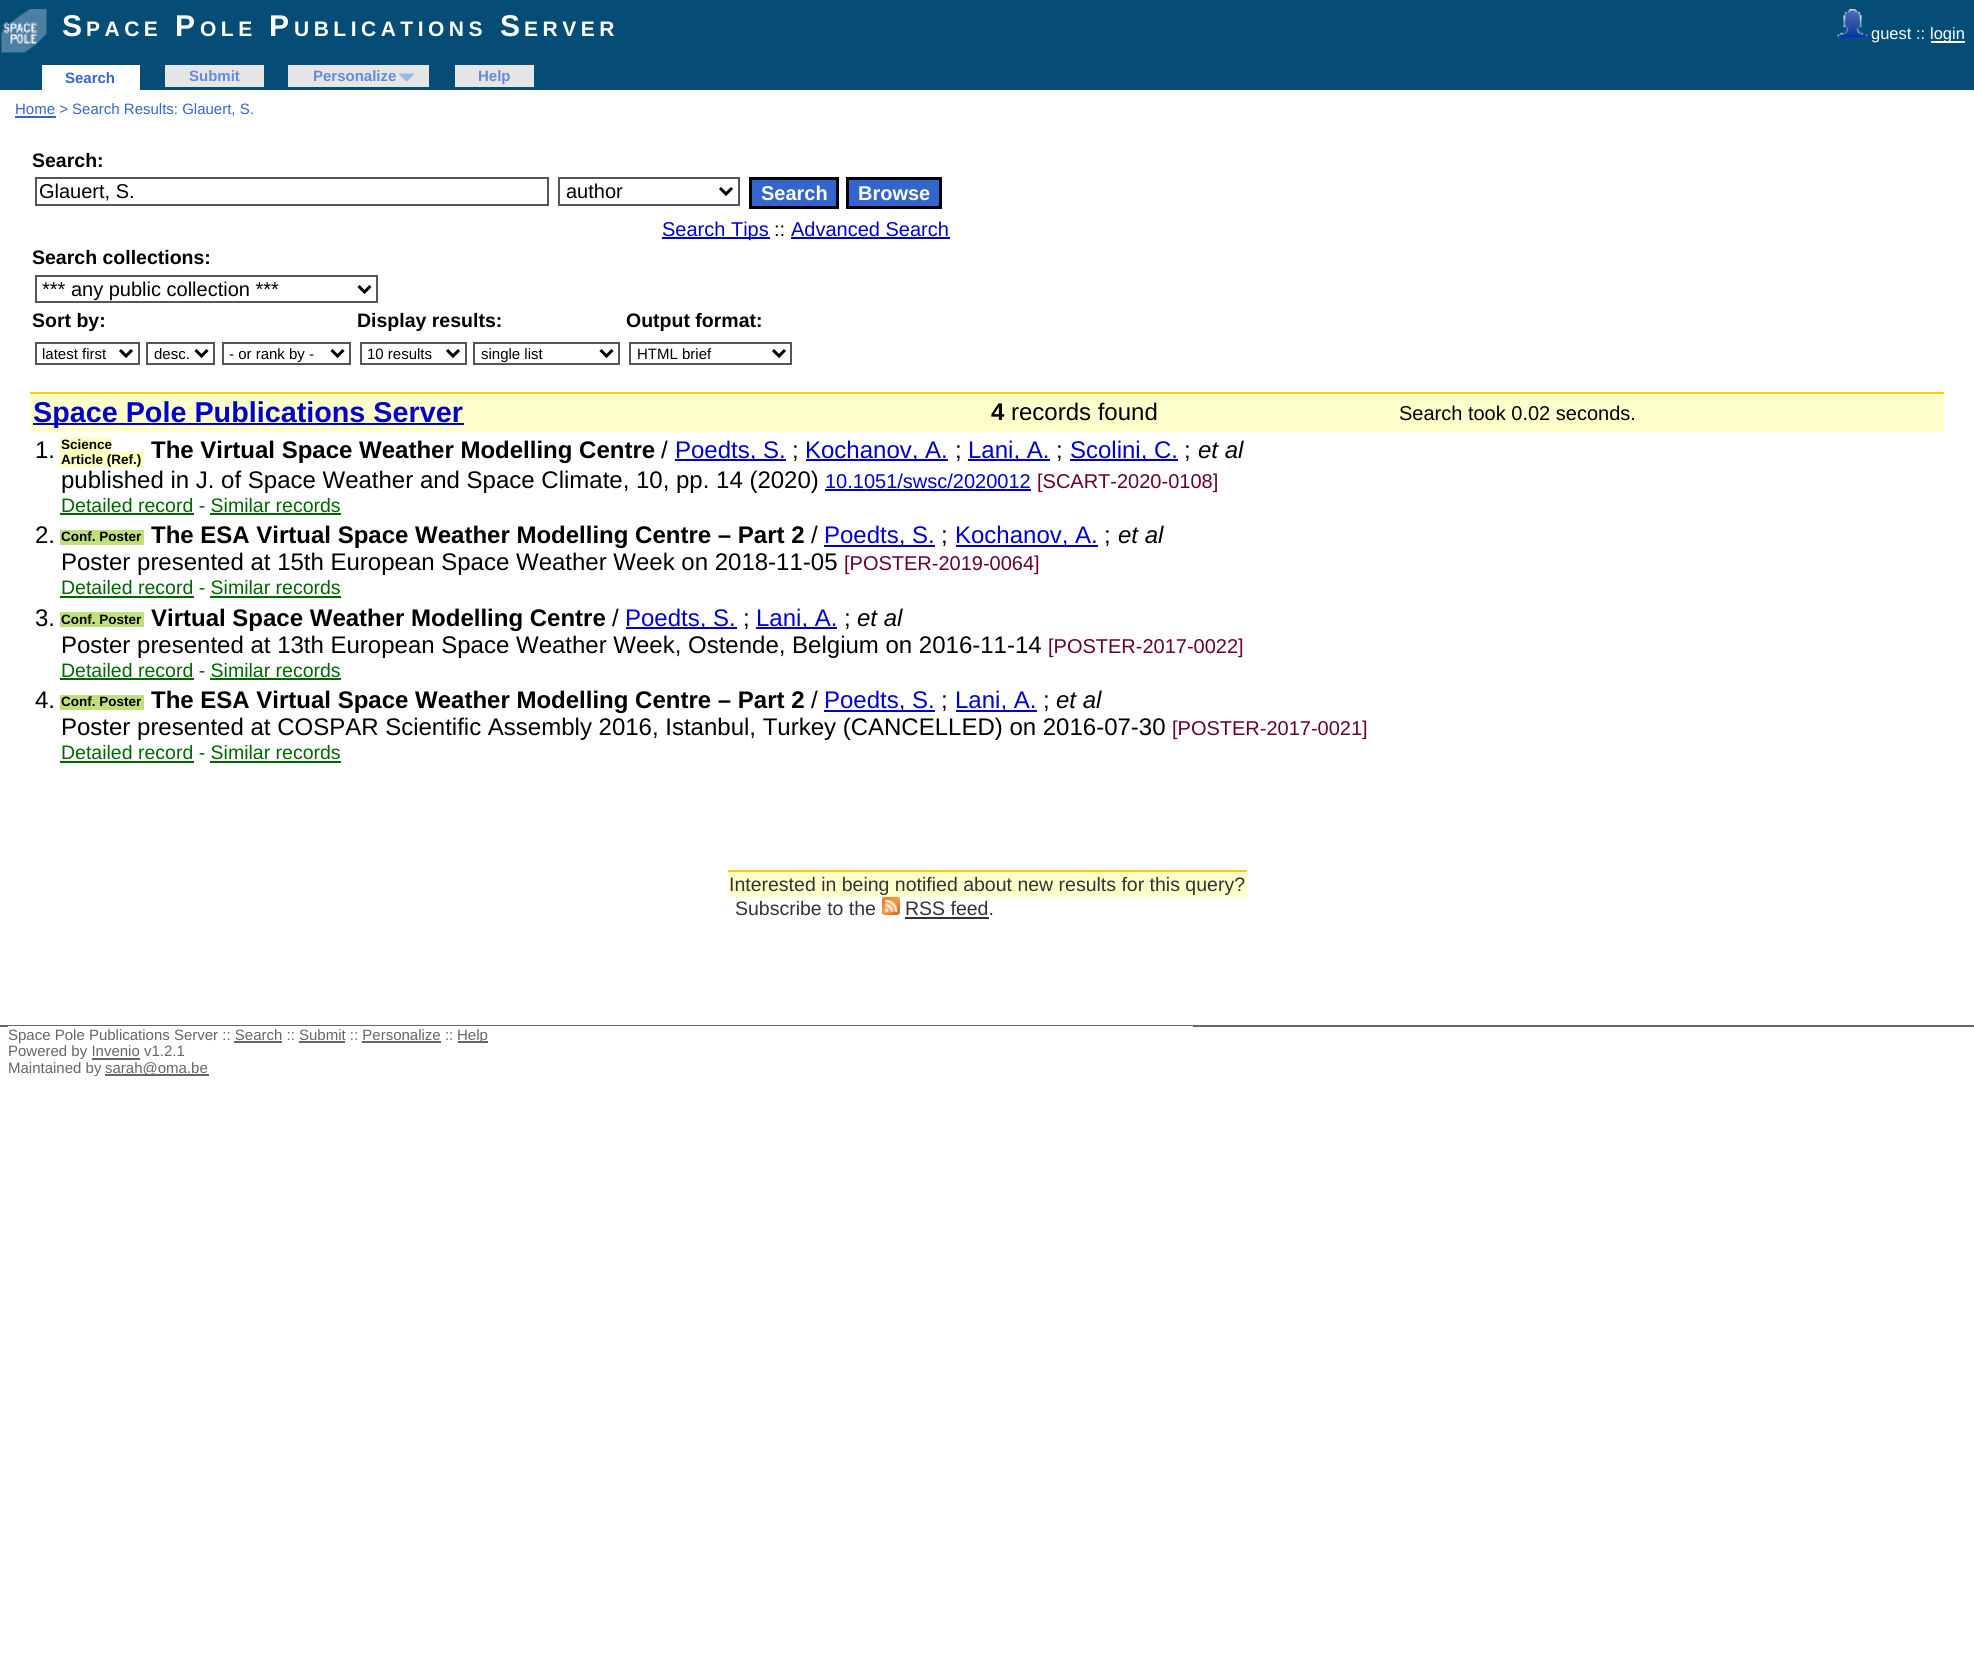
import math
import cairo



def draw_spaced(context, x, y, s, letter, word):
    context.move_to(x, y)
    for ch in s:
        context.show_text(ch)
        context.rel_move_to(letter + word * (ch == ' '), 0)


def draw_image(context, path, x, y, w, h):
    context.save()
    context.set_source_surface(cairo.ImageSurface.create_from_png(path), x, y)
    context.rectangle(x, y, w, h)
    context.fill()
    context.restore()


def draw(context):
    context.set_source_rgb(1, 1, 1)
    context.paint()
    context.set_source_rgb(5 / 255, 76 / 255, 118 / 255)
    context.rectangle(0, 0, 1974, 90)
    context.fill()
    draw_image(context, "images/1.png", 1, 9, 46, 44)
    draw_image(context, "images/2.png", 1837, 9, 31, 30)
    context.set_source_rgb(1, 1, 1)
    context.rectangle(1931, 41, 34, 2)
    context.fill()
    context.rectangle(42, 65, 98, 25)
    context.fill()
    context.set_source_rgb(230 / 255, 230 / 255, 230 / 255)
    context.rectangle(165, 65, 99, 22)
    context.fill()
    context.rectangle(288, 65, 141, 22)
    context.fill()
    draw_image(context, "images/3.png", 398, 73, 16, 9)
    context.rectangle(455, 65, 79, 22)
    context.fill()
    context.set_source_rgb(51 / 255, 102 / 255, 204 / 255)
    context.rectangle(15, 116, 41, 2)
    context.fill()
    context.rectangle(36, 178, 512, 27)
    context.set_source_rgb(85 / 255, 85 / 255, 85 / 255)
    context.stroke()
    context.rectangle(559, 178, 180, 27)
    context.stroke()
    context.new_path()
    context.move_to(720, 188)
    context.line_to(726, 194)
    context.line_to(732, 188)
    context.set_source_rgb(0, 0, 0)
    context.set_line_width(3)
    context.stroke()
    context.set_source_rgb(51 / 255, 102 / 255, 204 / 255)
    context.rectangle(750.5, 178.5, 87, 29)
    context.fill_preserve()
    context.set_source_rgb(0, 0, 0)
    context.stroke()
    context.set_source_rgb(51 / 255, 102 / 255, 204 / 255)
    context.rectangle(847.5, 178.5, 93, 29)
    context.fill_preserve()
    context.set_source_rgb(0, 0, 0)
    context.stroke()
    context.set_source_rgb(0, 0, 204 / 255)
    context.rectangle(662, 237, 108, 2)
    context.fill()
    context.rectangle(791, 237, 159, 2)
    context.fill()
    context.rectangle(36, 276, 341, 26)
    context.set_source_rgb(85 / 255, 85 / 255, 85 / 255)
    context.set_line_width(2)
    context.stroke()
    context.new_path()
    context.move_to(358.5, 286)
    context.line_to(364.5, 292)
    context.line_to(370.5, 286)
    context.set_source_rgb(0, 0, 0)
    context.set_line_width(3)
    context.stroke()
    context.rectangle(36, 343, 103, 21)
    context.set_source_rgb(85 / 255, 85 / 255, 85 / 255)
    context.set_line_width(2)
    context.stroke()
    context.new_path()
    context.move_to(120, 350)
    context.line_to(126, 356)
    context.line_to(132, 350)
    context.set_source_rgb(0, 0, 0)
    context.set_line_width(3)
    context.stroke()
    context.rectangle(147, 343, 67, 21)
    context.set_source_rgb(85 / 255, 85 / 255, 85 / 255)
    context.set_line_width(2)
    context.stroke()
    context.new_path()
    context.move_to(195.5, 350)
    context.line_to(201.5, 356)
    context.line_to(207.5, 350)
    context.set_source_rgb(0, 0, 0)
    context.set_line_width(3)
    context.stroke()
    context.rectangle(223, 343, 127, 21)
    context.set_source_rgb(85 / 255, 85 / 255, 85 / 255)
    context.set_line_width(2)
    context.stroke()
    context.new_path()
    context.move_to(331.5, 350)
    context.line_to(337.5, 356)
    context.line_to(343.5, 350)
    context.set_source_rgb(0, 0, 0)
    context.set_line_width(3)
    context.stroke()
    context.rectangle(361, 343, 105, 21)
    context.set_source_rgb(85 / 255, 85 / 255, 85 / 255)
    context.set_line_width(2)
    context.stroke()
    context.new_path()
    context.move_to(447, 350)
    context.line_to(453, 356)
    context.line_to(459, 350)
    context.set_source_rgb(0, 0, 0)
    context.set_line_width(3)
    context.stroke()
    context.rectangle(474, 343, 145, 21)
    context.set_source_rgb(85 / 255, 85 / 255, 85 / 255)
    context.set_line_width(2)
    context.stroke()
    context.new_path()
    context.move_to(600.5, 350)
    context.line_to(606.5, 356)
    context.line_to(612.5, 350)
    context.set_source_rgb(0, 0, 0)
    context.set_line_width(3)
    context.stroke()
    context.rectangle(630, 343, 161, 21)
    context.set_source_rgb(85 / 255, 85 / 255, 85 / 255)
    context.set_line_width(2)
    context.stroke()
    context.new_path()
    context.move_to(773, 350)
    context.line_to(779, 356)
    context.line_to(785, 350)
    context.set_source_rgb(0, 0, 0)
    context.set_line_width(3)
    context.stroke()
    context.set_source_rgb(1, 204 / 255, 0)
    context.rectangle(30, 392, 1914, 2)
    context.fill()
    context.set_source_rgb(1, 1, 204 / 255)
    context.rectangle(30, 394, 1914, 38)
    context.fill()
    context.set_source_rgb(0, 0, 204 / 255)
    context.rectangle(33, 423, 431, 2)
    context.fill()
    context.set_source_rgb(1, 1, 189 / 255)
    context.rectangle(60, 437, 51, 15)
    context.fill()
    context.rectangle(60, 452, 84, 15)
    context.fill()
    context.set_source_rgb(0, 0, 204 / 255)
    context.rectangle(675, 459, 111, 2)
    context.fill()
    context.rectangle(806, 459, 142, 2)
    context.fill()
    context.rectangle(968, 459, 82, 2)
    context.fill()
    context.rectangle(1070, 459, 108, 2)
    context.fill()
    context.rectangle(825, 489, 206, 2)
    context.fill()
    context.set_source_rgb(0, 102 / 255, 0)
    context.rectangle(60, 513, 134, 2)
    context.fill()
    context.rectangle(210, 513, 131, 2)
    context.fill()
    context.set_source_rgb(191 / 255, 223 / 255, 125 / 255)
    context.rectangle(60, 530, 84, 15)
    context.fill()
    context.set_source_rgb(0, 0, 204 / 255)
    context.rectangle(824, 545, 111, 2)
    context.fill()
    context.rectangle(956, 545, 142, 2)
    context.fill()
    context.set_source_rgb(0, 102 / 255, 0)
    context.rectangle(60, 596, 134, 2)
    context.fill()
    context.rectangle(210, 596, 131, 2)
    context.fill()
    context.set_source_rgb(191 / 255, 223 / 255, 125 / 255)
    context.rectangle(60, 612, 84, 15)
    context.fill()
    context.set_source_rgb(0, 0, 204 / 255)
    context.rectangle(626, 627, 111, 2)
    context.fill()
    context.rectangle(756, 627, 81, 2)
    context.fill()
    context.set_source_rgb(0, 102 / 255, 0)
    context.rectangle(60, 678, 134, 2)
    context.fill()
    context.rectangle(210, 678, 131, 2)
    context.fill()
    context.set_source_rgb(191 / 255, 223 / 255, 125 / 255)
    context.rectangle(60, 695, 84, 15)
    context.fill()
    context.set_source_rgb(0, 0, 204 / 255)
    context.rectangle(824, 710, 111, 2)
    context.fill()
    context.rectangle(956, 710, 81, 2)
    context.fill()
    context.set_source_rgb(0, 102 / 255, 0)
    context.rectangle(60, 761, 134, 2)
    context.fill()
    context.rectangle(210, 761, 131, 2)
    context.fill()
    context.set_source_rgb(1, 204 / 255, 0)
    context.rectangle(728, 870, 519, 2)
    context.fill()
    context.set_source_rgb(1, 1, 204 / 255)
    context.rectangle(728, 872, 519, 25)
    context.fill()
    draw_image(context, "images/4.png", 882, 897, 18, 18)
    context.set_source_rgb(51 / 255, 51 / 255, 51 / 255)
    context.rectangle(905, 917, 84, 2)
    context.fill()
    context.set_source_rgb(102 / 255, 102 / 255, 102 / 255)
    context.rectangle(0, 1025, 1974, 2)
    context.fill()
    context.set_source_rgb(1, 1, 1)
    context.rectangle(8, 1026, 1185, 1)
    context.fill()
    context.set_source_rgb(102 / 255, 102 / 255, 102 / 255)
    context.rectangle(458, 1041, 30, 2)
    context.fill()
    context.rectangle(234, 1041, 48, 2)
    context.fill()
    context.rectangle(299, 1041, 46, 2)
    context.fill()
    context.rectangle(362, 1041, 79, 2)
    context.fill()
    context.rectangle(92, 1058, 48, 2)
    context.fill()
    context.rectangle(105, 1074, 104, 2)
    context.fill()
    context.select_font_face("Liberation Sans", cairo.FontSlant.NORMAL, cairo.FontWeight.BOLD)
    context.set_font_size(30)
    context.set_source_rgb(1, 1, 1)
    draw_spaced(context, 62, 36, "S", 4.5, 0)
    context.set_font_size(21)
    draw_spaced(context, 86, 36, "PACE", 4.5, 0)
    context.set_font_size(30)
    draw_spaced(context, 175, 36, "P", 4.5, 0)
    context.set_font_size(21)
    draw_spaced(context, 200, 36, "OLE", 4.5, 0)
    context.set_font_size(30)
    draw_spaced(context, 269, 36, "P", 4.5, 0)
    context.set_font_size(21)
    draw_spaced(context, 294, 36, "UBLICATIONS", 4.5, 0)
    context.set_font_size(30)
    draw_spaced(context, 500, 36, "S", 4.5, 0)
    context.set_font_size(21)
    draw_spaced(context, 524, 36, "ERVER", 4.5, 0)
    context.select_font_face("Liberation Sans")
    context.set_font_size(16.5)
    context.move_to(1871, 39)
    context.show_text("guest ::")
    context.move_to(1930, 39)
    context.show_text("login")
    context.select_font_face("Liberation Sans", cairo.FontSlant.NORMAL, cairo.FontWeight.BOLD)
    context.set_font_size(15)
    context.set_source_rgb(51 / 255, 102 / 255, 204 / 255)
    context.move_to(65, 83)
    context.show_text("Search")
    context.set_source_rgb(102 / 255, 136 / 255, 221 / 255)
    context.move_to(189, 81)
    context.show_text("Submit")
    context.move_to(313, 81)
    context.show_text("Personalize")
    context.move_to(478, 81)
    context.show_text("Help")
    context.select_font_face("Liberation Sans")
    context.set_source_rgb(51 / 255, 102 / 255, 204 / 255)
    context.move_to(15, 114)
    context.show_text("Home > Search Results: Glauert, S.")
    context.select_font_face("Liberation Sans", cairo.FontSlant.NORMAL, cairo.FontWeight.BOLD)
    context.set_font_size(19.5)
    context.set_source_rgb(0, 0, 0)
    context.move_to(32, 167)
    context.show_text("Search:")
    context.select_font_face("Liberation Sans")
    context.set_font_size(20)
    context.move_to(39, 198)
    context.show_text("Glauert, S.")
    context.move_to(566, 198)
    context.show_text("author")
    context.select_font_face("Liberation Sans", cairo.FontSlant.NORMAL, cairo.FontWeight.BOLD)
    context.set_source_rgb(1, 1, 1)
    context.move_to(761, 200)
    context.show_text("Search")
    context.move_to(858, 200)
    context.show_text("Browse")
    context.select_font_face("Liberation Sans")
    context.set_source_rgb(0, 0, 204 / 255)
    context.move_to(662, 236)
    context.show_text("Search Tips")
    context.set_source_rgb(0, 0, 0)
    context.move_to(774, 236)
    context.show_text("::")
    context.set_source_rgb(0, 0, 204 / 255)
    context.move_to(791, 236)
    context.show_text("Advanced Search")
    context.select_font_face("Liberation Sans", cairo.FontSlant.NORMAL, cairo.FontWeight.BOLD)
    context.set_font_size(19.5)
    context.set_source_rgb(0, 0, 0)
    context.move_to(32, 264)
    context.show_text("Search collections:")
    context.select_font_face("Liberation Sans")
    context.set_font_size(20)
    context.move_to(42, 296)
    context.show_text("*** any public collection ***")
    context.select_font_face("Liberation Sans", cairo.FontSlant.NORMAL, cairo.FontWeight.BOLD)
    context.set_font_size(19.5)
    context.move_to(32, 327)
    context.show_text("Sort by:")
    context.move_to(357, 327)
    context.show_text("Display results:")
    context.move_to(626, 327)
    context.show_text("Output format:")
    context.select_font_face("Liberation Sans")
    context.set_font_size(15)
    context.move_to(42, 359)
    context.show_text("latest first")
    context.move_to(154, 359)
    context.show_text("desc.")
    context.move_to(229, 359)
    context.show_text("- or rank by -")
    context.move_to(367, 359)
    context.show_text("10 results")
    context.move_to(481, 359)
    context.show_text("single list")
    context.move_to(637, 359)
    context.show_text("HTML brief")
    context.select_font_face("Liberation Sans", cairo.FontSlant.NORMAL, cairo.FontWeight.BOLD)
    context.set_font_size(28.75)
    context.set_source_rgb(0, 0, 204 / 255)
    context.move_to(33, 422)
    context.show_text("Space Pole Publications Server")
    context.set_font_size(24)
    context.set_source_rgb(0, 0, 0)
    context.move_to(991, 420)
    context.show_text("4")
    context.select_font_face("Liberation Sans")
    context.move_to(1011, 420)
    context.show_text("records found")
    context.set_font_size(20)
    context.move_to(1399, 420)
    context.show_text("Search took 0.02 seconds.")
    context.set_font_size(24)
    context.move_to(35, 458)
    context.show_text("1.")
    context.select_font_face("Liberation Sans", cairo.FontSlant.NORMAL, cairo.FontWeight.BOLD)
    context.set_font_size(13.5)
    context.move_to(61, 449)
    context.show_text("Science")
    context.move_to(61, 464)
    context.show_text("Article (Ref.)")
    context.set_font_size(24)
    context.move_to(151, 458)
    context.show_text("The Virtual Space Weather Modelling Centre")
    context.select_font_face("Liberation Sans")
    context.move_to(661, 458)
    context.show_text("/")
    context.set_source_rgb(0, 0, 204 / 255)
    context.move_to(675, 458)
    context.show_text("Poedts, S.")
    context.set_source_rgb(0, 0, 0)
    context.move_to(792, 458)
    context.show_text(";")
    context.set_source_rgb(0, 0, 204 / 255)
    context.move_to(805, 458)
    context.show_text("Kochanov, A.")
    context.set_source_rgb(0, 0, 0)
    context.move_to(955, 458)
    context.show_text(";")
    context.set_source_rgb(0, 0, 204 / 255)
    context.move_to(968, 458)
    context.show_text("Lani, A.")
    context.set_source_rgb(0, 0, 0)
    context.move_to(1056, 458)
    context.show_text(";")
    context.set_source_rgb(0, 0, 204 / 255)
    context.move_to(1070, 458)
    context.show_text("Scolini, C.")
    context.set_source_rgb(0, 0, 0)
    context.move_to(1184, 458)
    context.show_text(";")
    context.select_font_face("Liberation Sans", cairo.FontSlant.ITALIC)
    context.move_to(1198, 458)
    context.show_text("et al")
    context.select_font_face("Liberation Sans")
    context.move_to(61, 488)
    context.show_text("published in J. of Space Weather and Space Climate, 10, pp. 14 (2020)")
    context.set_font_size(20)
    context.set_source_rgb(0, 0, 204 / 255)
    context.move_to(825, 488)
    context.show_text("10.1051/swsc/2020012")
    context.set_source_rgb(102 / 255, 0, 51 / 255)
    context.move_to(1037, 488)
    context.show_text("[SCART-2020-0108]")
    context.set_font_size(19.5)
    context.set_source_rgb(0, 102 / 255, 0)
    context.move_to(61, 512)
    context.show_text("Detailed record - Similar records")
    context.set_font_size(24)
    context.set_source_rgb(0, 0, 0)
    context.move_to(35, 543)
    context.show_text("2.")
    context.select_font_face("Liberation Sans", cairo.FontSlant.NORMAL, cairo.FontWeight.BOLD)
    context.set_font_size(13.5)
    context.move_to(61, 541)
    context.show_text("Conf. Poster")
    context.set_font_size(24)
    context.move_to(151, 543)
    context.show_text("The ESA Virtual Space Weather Modelling Centre – Part 2")
    context.select_font_face("Liberation Sans")
    context.move_to(811, 543)
    context.show_text("/")
    context.set_source_rgb(0, 0, 204 / 255)
    context.move_to(824, 543)
    context.show_text("Poedts, S.")
    context.set_source_rgb(0, 0, 0)
    context.move_to(941, 543)
    context.show_text(";")
    context.set_source_rgb(0, 0, 204 / 255)
    context.move_to(955, 543)
    context.show_text("Kochanov, A.")
    context.set_source_rgb(0, 0, 0)
    context.move_to(1104, 543)
    context.show_text(";")
    context.select_font_face("Liberation Sans", cairo.FontSlant.ITALIC)
    context.move_to(1118, 543)
    context.show_text("et al")
    context.select_font_face("Liberation Sans")
    context.move_to(61, 570)
    context.show_text("Poster presented at 15th European Space Weather Week on 2018-11-05")
    context.set_font_size(20)
    context.set_source_rgb(102 / 255, 0, 51 / 255)
    context.move_to(844, 570)
    context.show_text("[POSTER-2019-0064]")
    context.set_font_size(19.5)
    context.set_source_rgb(0, 102 / 255, 0)
    context.move_to(61, 594)
    context.show_text("Detailed record - Similar records")
    context.set_font_size(24)
    context.set_source_rgb(0, 0, 0)
    context.move_to(35, 626)
    context.show_text("3.")
    context.select_font_face("Liberation Sans", cairo.FontSlant.NORMAL, cairo.FontWeight.BOLD)
    context.set_font_size(13.5)
    context.move_to(61, 624)
    context.show_text("Conf. Poster")
    context.set_font_size(24)
    context.move_to(151, 626)
    context.show_text("Virtual Space Weather Modelling Centre")
    context.select_font_face("Liberation Sans")
    context.move_to(612, 626)
    context.show_text("/")
    context.set_source_rgb(0, 0, 204 / 255)
    context.move_to(625, 626)
    context.show_text("Poedts, S.")
    context.set_source_rgb(0, 0, 0)
    context.move_to(743, 626)
    context.show_text(";")
    context.set_source_rgb(0, 0, 204 / 255)
    context.move_to(756, 626)
    context.show_text("Lani, A.")
    context.set_source_rgb(0, 0, 0)
    context.move_to(844, 626)
    context.show_text(";")
    context.select_font_face("Liberation Sans", cairo.FontSlant.ITALIC)
    context.move_to(857, 626)
    context.show_text("et al")
    context.select_font_face("Liberation Sans")
    context.move_to(61, 653)
    context.show_text("Poster presented at 13th European Space Weather Week, Ostende, Belgium on 2016-11-14")
    context.set_font_size(20)
    context.set_source_rgb(102 / 255, 0, 51 / 255)
    context.move_to(1048, 653)
    context.show_text("[POSTER-2017-0022]")
    context.set_font_size(19.5)
    context.set_source_rgb(0, 102 / 255, 0)
    context.move_to(61, 677)
    context.show_text("Detailed record - Similar records")
    context.set_font_size(24)
    context.set_source_rgb(0, 0, 0)
    context.move_to(35, 708)
    context.show_text("4.")
    context.select_font_face("Liberation Sans", cairo.FontSlant.NORMAL, cairo.FontWeight.BOLD)
    context.set_font_size(13.5)
    context.move_to(61, 706)
    context.show_text("Conf. Poster")
    context.set_font_size(24)
    context.move_to(151, 708)
    context.show_text("The ESA Virtual Space Weather Modelling Centre – Part 2")
    context.select_font_face("Liberation Sans")
    context.move_to(811, 708)
    context.show_text("/")
    context.set_source_rgb(0, 0, 204 / 255)
    context.move_to(824, 708)
    context.show_text("Poedts, S.")
    context.set_source_rgb(0, 0, 0)
    context.move_to(941, 708)
    context.show_text(";")
    context.set_source_rgb(0, 0, 204 / 255)
    context.move_to(955, 708)
    context.show_text("Lani, A.")
    context.set_source_rgb(0, 0, 0)
    context.move_to(1043, 708)
    context.show_text(";")
    context.select_font_face("Liberation Sans", cairo.FontSlant.ITALIC)
    context.move_to(1056, 708)
    context.show_text("et al")
    context.select_font_face("Liberation Sans")
    context.move_to(61, 735)
    context.show_text("Poster presented at COSPAR Scientific Assembly 2016, Istanbul, Turkey (CANCELLED) on 2016-07-30")
    context.set_font_size(20)
    context.set_source_rgb(102 / 255, 0, 51 / 255)
    context.move_to(1172, 735)
    context.show_text("[POSTER-2017-0021]")
    context.set_font_size(19.5)
    context.set_source_rgb(0, 102 / 255, 0)
    context.move_to(61, 759)
    context.show_text("Detailed record - Similar records")
    context.set_source_rgb(51 / 255, 51 / 255, 51 / 255)
    context.move_to(729, 891)
    context.show_text("Interested in being notified about new results for this query?")
    context.move_to(735, 915)
    context.show_text("Subscribe to the")
    context.move_to(905, 915)
    context.show_text("RSS feed.")
    context.set_font_size(15)
    context.set_source_rgb(102 / 255, 102 / 255, 102 / 255)
    context.move_to(8, 1040)
    context.show_text("Space Pole Publications Server :: Search :: Submit :: Personalize ::")
    context.move_to(457, 1040)
    context.show_text("Help")
    context.move_to(8, 1056)
    context.show_text("Powered by Invenio v1.2.1")
    context.move_to(8, 1073)
    context.show_text("Maintained by")
    context.move_to(105, 1073)
    context.show_text("sarah@oma.be")


surface = cairo.ImageSurface(cairo.Format.RGB24, 1974, 1658)
context = cairo.Context(surface)
options = cairo.FontOptions()
options.set_hint_metrics(cairo.HintMetrics.OFF)
options.set_hint_style(cairo.HintStyle.NONE)
context.set_font_options(options)
context.set_miter_limit(4)
draw(context)
surface.write_to_png("out.png")
